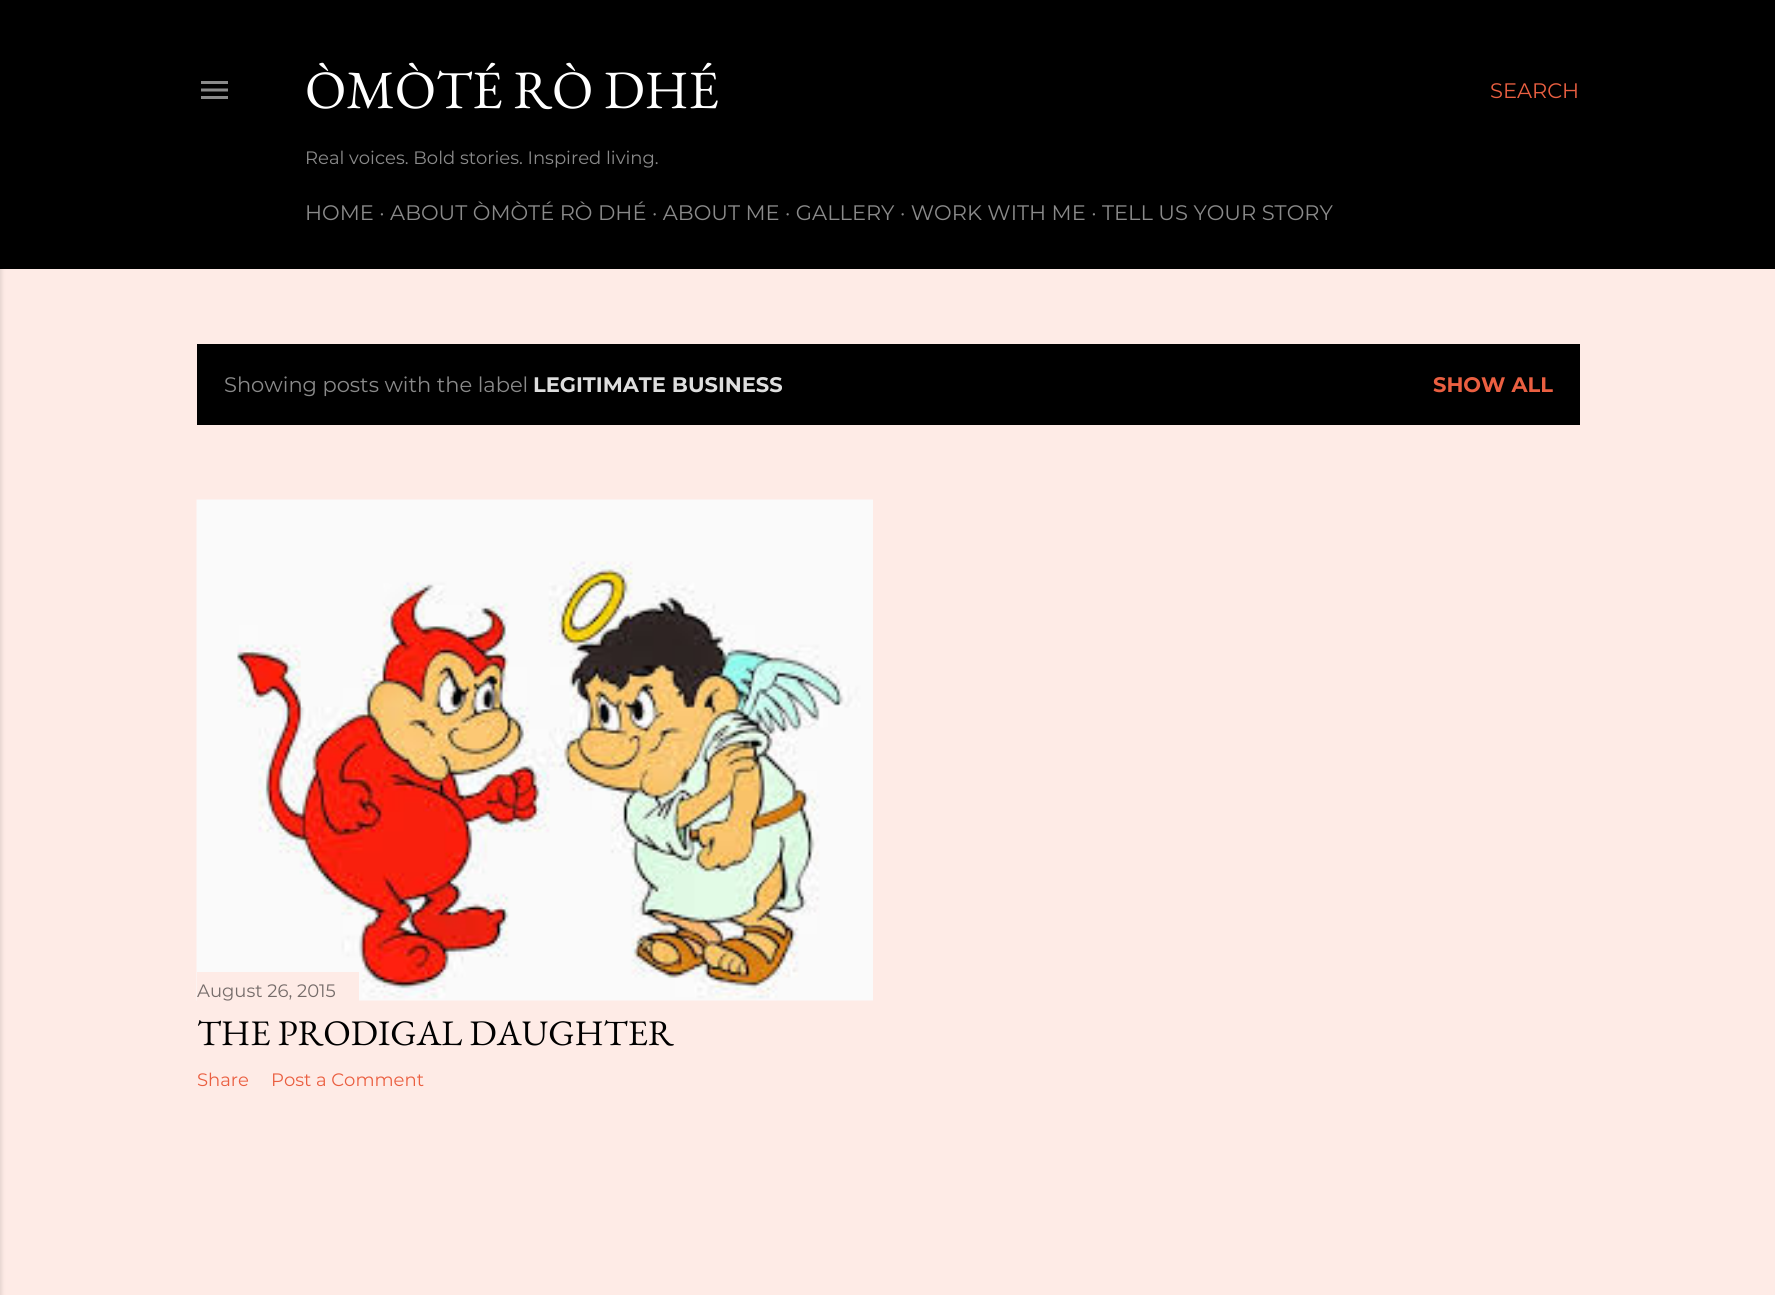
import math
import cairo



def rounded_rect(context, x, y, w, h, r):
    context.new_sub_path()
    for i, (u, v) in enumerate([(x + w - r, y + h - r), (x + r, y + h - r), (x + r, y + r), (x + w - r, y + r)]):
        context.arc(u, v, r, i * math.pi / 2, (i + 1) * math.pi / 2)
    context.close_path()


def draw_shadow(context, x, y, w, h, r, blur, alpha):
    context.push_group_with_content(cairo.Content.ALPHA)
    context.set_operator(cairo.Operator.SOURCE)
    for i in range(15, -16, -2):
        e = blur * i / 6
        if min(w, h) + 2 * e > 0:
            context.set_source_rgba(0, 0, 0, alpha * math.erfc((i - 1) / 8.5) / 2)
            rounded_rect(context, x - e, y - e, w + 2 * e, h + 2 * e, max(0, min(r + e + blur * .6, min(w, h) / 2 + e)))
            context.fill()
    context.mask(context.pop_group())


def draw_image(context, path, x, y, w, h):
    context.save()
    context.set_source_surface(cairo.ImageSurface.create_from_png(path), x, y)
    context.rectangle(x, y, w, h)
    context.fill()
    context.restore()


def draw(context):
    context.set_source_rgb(254 / 255, 235 / 255, 230 / 255)
    context.paint()
    context.set_source_rgb(0, 0, 0)
    context.rectangle(0, 0, 1775, 269)
    context.fill()
    context.set_source_rgb(0, 0, 0)
    draw_shadow(context, -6, 0, 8, 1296, 0, 2, 0.1)
    draw_image(context, "images/1.png", 201, 81, 27, 18)
    context.set_source_rgb(0, 0, 0)
    context.rectangle(197, 344, 1383, 81)
    context.fill()
    draw_image(context, "images/2.png", 196, 499, 677, 502)
    context.set_source_rgb(254 / 255, 235 / 255, 230 / 255)
    context.rectangle(197, 972, 162, 29)
    context.fill()
    context.select_font_face("EB Garamond")
    context.set_font_size(54)
    context.set_source_rgb(1, 1, 1)
    context.move_to(305, 108)
    context.show_text("ÒMÒTÉ RÒ DHÉ")
    context.select_font_face("Montserrat")
    context.set_font_size(18)
    context.set_source_rgb(138 / 255, 138 / 255, 138 / 255)
    context.move_to(305, 164)
    context.show_text("Real voices. Bold stories. Inspired living.")
    context.set_font_size(21)
    context.move_to(305, 220)
    context.show_text("HOME · ABOUT ÒMÒTÉ RÒ DHÉ · ABOUT ME · GALLERY · WORK WITH ME · TELL US YOUR STORY")
    context.set_source_rgb(234 / 255, 95 / 255, 65 / 255)
    context.move_to(1490, 98)
    context.show_text("SEARCH")
    context.set_source_rgb(138 / 255, 138 / 255, 138 / 255)
    context.move_to(224, 392)
    context.show_text("Showing posts with the label")
    context.select_font_face("Montserrat", cairo.FontSlant.NORMAL, cairo.FontWeight.BOLD)
    context.set_source_rgb(222 / 255, 222 / 255, 222 / 255)
    context.move_to(533, 392)
    context.show_text("LEGITIMATE BUSINESS")
    context.set_source_rgb(234 / 255, 95 / 255, 65 / 255)
    context.move_to(1433, 392)
    context.show_text("SHOW ALL")
    context.select_font_face("Montserrat")
    context.set_font_size(18)
    context.set_source_rgb(117 / 255, 108 / 255, 106 / 255)
    context.move_to(197, 997)
    context.show_text("August 26, 2015")
    context.select_font_face("EB Garamond")
    context.set_font_size(36)
    context.set_source_rgb(0, 0, 0)
    context.move_to(197, 1045)
    context.show_text("THE PRODIGAL DAUGHTER")
    context.select_font_face("Montserrat")
    context.set_font_size(18)
    context.set_source_rgb(234 / 255, 95 / 255, 65 / 255)
    context.move_to(197, 1086)
    context.show_text("Share")
    context.move_to(271, 1086)
    context.show_text("Post a Comment")


surface = cairo.ImageSurface(cairo.Format.RGB24, 1775, 1295)
context = cairo.Context(surface)
options = cairo.FontOptions()
options.set_hint_metrics(cairo.HintMetrics.OFF)
options.set_hint_style(cairo.HintStyle.NONE)
context.set_font_options(options)
context.set_miter_limit(4)
draw(context)
surface.write_to_png("out.png")
